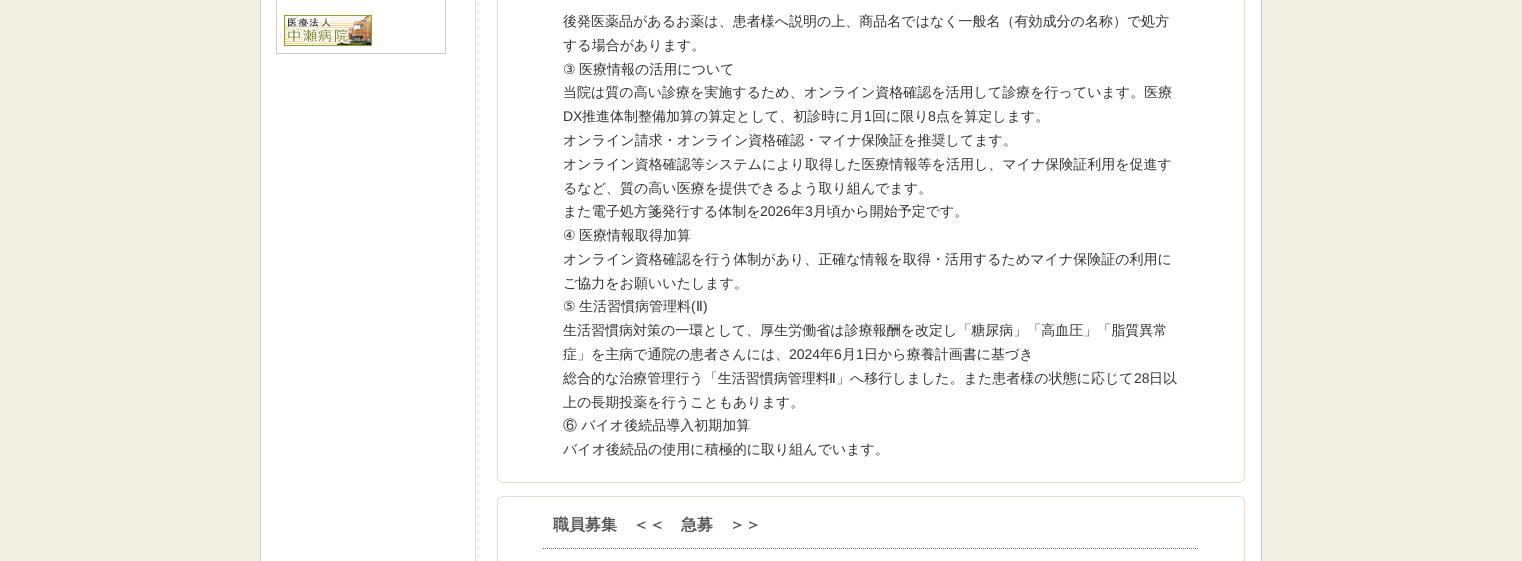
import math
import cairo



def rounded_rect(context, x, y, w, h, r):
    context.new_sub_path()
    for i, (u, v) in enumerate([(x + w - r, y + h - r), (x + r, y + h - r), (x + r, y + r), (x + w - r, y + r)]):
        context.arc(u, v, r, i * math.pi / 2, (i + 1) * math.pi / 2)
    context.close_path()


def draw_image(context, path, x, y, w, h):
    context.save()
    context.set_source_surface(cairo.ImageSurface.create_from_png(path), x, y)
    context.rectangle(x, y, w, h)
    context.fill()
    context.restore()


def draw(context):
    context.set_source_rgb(242 / 255, 240 / 255, 227 / 255)
    context.paint()
    context.set_source_rgb(1, 1, 1)
    context.rectangle(261, 0, 1000, 561)
    context.fill()
    context.set_source_rgb(204 / 255, 204 / 255, 204 / 255)
    context.rectangle(1261, 0, 1, 561)
    context.fill()
    context.rectangle(260, 0, 1, 561)
    context.fill()
    context.rectangle(276.5, -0.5, 169, 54)
    context.set_line_width(1)
    context.stroke()
    draw_image(context, "images/1.png", 284, 15, 88, 31)
    context.new_path()
    context.move_to(475.5, -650)
    context.line_to(475.5, 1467)
    context.set_source_rgb(206 / 255, 199 / 255, 189 / 255)
    context.set_dash([1, 1])
    context.stroke()
    rounded_rect(context, 497.5, -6.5, 747, 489, 5.5)
    context.set_source_rgb(234 / 255, 218 / 255, 206 / 255)
    context.set_dash([])
    context.stroke()
    rounded_rect(context, 497.5, 496.5, 747, 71, 5.5)
    context.stroke()
    context.new_path()
    context.move_to(543, 548.5)
    context.line_to(1199, 548.5)
    context.set_source_rgb(110 / 255, 110 / 255, 110 / 255)
    context.set_dash([1, 1])
    context.stroke()
    context.select_font_face("WenQuanYi Zen Hei Medium")
    context.set_font_size(14)
    context.set_source_rgb(51 / 255, 51 / 255, 51 / 255)
    context.move_to(563, 26)
    context.show_text("後発医薬品があるお薬は、患者様へ説明の上、商品名ではなく一般名（有効成分の名称）で処方")
    context.move_to(563, 50)
    context.show_text("する場合があります。")
    context.select_font_face("DejaVu Sans")
    context.move_to(563, 74)
    context.show_text("③")
    context.select_font_face("WenQuanYi Zen Hei Medium")
    context.move_to(579, 74)
    context.show_text("医療情報の活用について")
    context.move_to(563, 97)
    context.show_text("当院は質の高い診療を実施するため、オンライン資格確認を活用して診療を行っています。医療")
    context.select_font_face("Liberation Sans")
    context.move_to(563, 121)
    context.show_text("DX")
    context.select_font_face("WenQuanYi Zen Hei Medium")
    context.move_to(582, 121)
    context.show_text("推進体制整備加算の算定として、初診時に月")
    context.select_font_face("Liberation Sans")
    context.move_to(864, 121)
    context.show_text("1")
    context.select_font_face("WenQuanYi Zen Hei Medium")
    context.move_to(872, 121)
    context.show_text("回に限り")
    context.select_font_face("Liberation Sans")
    context.move_to(928, 121)
    context.show_text("8")
    context.select_font_face("WenQuanYi Zen Hei Medium")
    context.move_to(936, 121)
    context.show_text("点を算定します。")
    context.move_to(563, 145)
    context.show_text("オンライン請求・オンライン資格確認・マイナ保険証を推奨してます。")
    context.move_to(563, 169)
    context.show_text("オンライン資格確認等システムにより取得した医療情報等を活用し、マイナ保険証利用を促進す")
    context.move_to(563, 193)
    context.show_text("るなど、質の高い医療を提供できるよう取り組んでます。")
    context.move_to(563, 216)
    context.show_text("また電子処方箋発行する体制を")
    context.select_font_face("Liberation Sans")
    context.move_to(760, 216)
    context.show_text("2026")
    context.select_font_face("WenQuanYi Zen Hei Medium")
    context.move_to(791, 216)
    context.show_text("年")
    context.select_font_face("Liberation Sans")
    context.move_to(805, 216)
    context.show_text("3")
    context.select_font_face("WenQuanYi Zen Hei Medium")
    context.move_to(813, 216)
    context.show_text("月頃から開始予定です。")
    context.select_font_face("DejaVu Sans")
    context.move_to(563, 240)
    context.show_text("④")
    context.select_font_face("WenQuanYi Zen Hei Medium")
    context.move_to(579, 240)
    context.show_text("医療情報取得加算")
    context.move_to(563, 264)
    context.show_text("オンライン資格確認を行う体制があり、正確な情報を取得・活用するためマイナ保険証の利用に")
    context.move_to(563, 288)
    context.show_text("ご協力をお願いいたします。")
    context.select_font_face("DejaVu Sans")
    context.move_to(563, 311)
    context.show_text("⑤")
    context.select_font_face("WenQuanYi Zen Hei Medium")
    context.move_to(579, 311)
    context.show_text("生活習慣病管理料")
    context.select_font_face("Liberation Sans")
    context.move_to(691, 311)
    context.show_text("(")
    context.select_font_face("DejaVu Sans")
    context.move_to(696, 311)
    context.show_text("Ⅱ")
    context.select_font_face("Liberation Sans")
    context.move_to(703, 311)
    context.show_text(")")
    context.select_font_face("WenQuanYi Zen Hei Medium")
    context.move_to(563, 335)
    context.show_text("生活習慣病対策の一環として、厚生労働省は診療報酬を改定し「糖尿病」「高血圧」「脂質異常")
    context.move_to(563, 359)
    context.show_text("症」を主病で通院の患者さんには、")
    context.select_font_face("Liberation Sans")
    context.move_to(789, 359)
    context.show_text("2024")
    context.select_font_face("WenQuanYi Zen Hei Medium")
    context.move_to(820, 359)
    context.show_text("年")
    context.select_font_face("Liberation Sans")
    context.move_to(834, 359)
    context.show_text("6")
    context.select_font_face("WenQuanYi Zen Hei Medium")
    context.move_to(842, 359)
    context.show_text("月")
    context.select_font_face("Liberation Sans")
    context.move_to(856, 359)
    context.show_text("1")
    context.select_font_face("WenQuanYi Zen Hei Medium")
    context.move_to(864, 359)
    context.show_text("日から療養計画書に基づき")
    context.move_to(563, 383)
    context.show_text("総合的な治療管理行う「生活習慣病管理料")
    context.select_font_face("DejaVu Sans")
    context.move_to(829, 383)
    context.show_text("Ⅱ")
    context.select_font_face("WenQuanYi Zen Hei Medium")
    context.move_to(836, 383)
    context.show_text("」へ移行しました。また患者様の状態に応じて")
    context.select_font_face("Liberation Sans")
    context.move_to(1134, 383)
    context.show_text("28")
    context.select_font_face("WenQuanYi Zen Hei Medium")
    context.move_to(1149, 383)
    context.show_text("日以")
    context.move_to(563, 407)
    context.show_text("上の長期投薬を行うこともあります。")
    context.move_to(563, 430)
    context.show_text("⑥ バイオ後続品導入初期加算")
    context.move_to(563, 454)
    context.show_text("バイオ後続品の使用に積極的に取り組んでいます。")
    context.select_font_face("WenQuanYi Zen Hei", cairo.FontSlant.NORMAL, cairo.FontWeight.BOLD)
    context.set_font_size(16)
    context.set_source_rgb(85 / 255, 85 / 255, 85 / 255)
    context.move_to(553, 530)
    context.show_text("職員募集　＜＜　急募　＞＞")


surface = cairo.ImageSurface(cairo.Format.RGB24, 1522, 561)
context = cairo.Context(surface)
options = cairo.FontOptions()
options.set_hint_metrics(cairo.HintMetrics.OFF)
options.set_hint_style(cairo.HintStyle.NONE)
context.set_font_options(options)
context.set_miter_limit(4)
draw(context)
surface.write_to_png("out.png")
